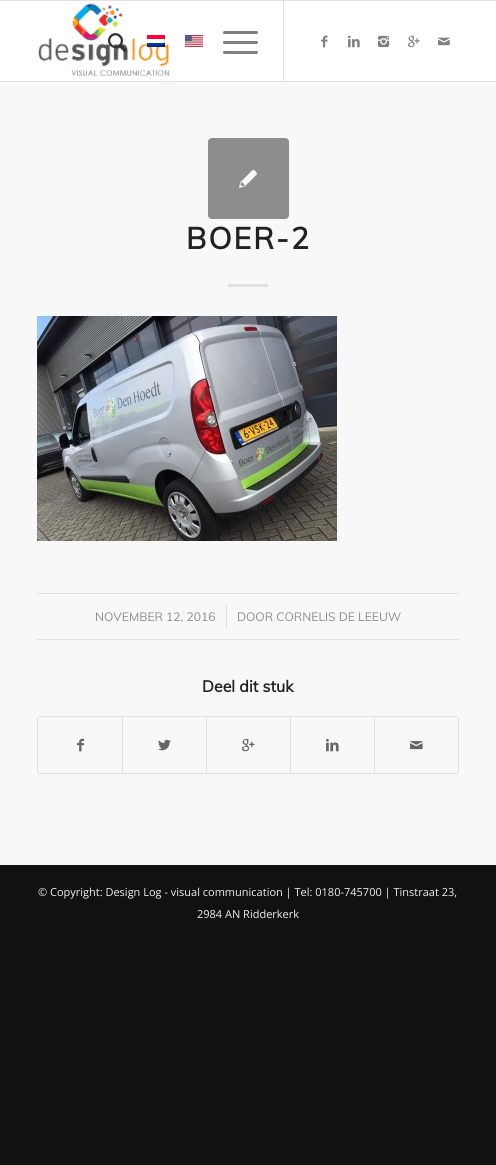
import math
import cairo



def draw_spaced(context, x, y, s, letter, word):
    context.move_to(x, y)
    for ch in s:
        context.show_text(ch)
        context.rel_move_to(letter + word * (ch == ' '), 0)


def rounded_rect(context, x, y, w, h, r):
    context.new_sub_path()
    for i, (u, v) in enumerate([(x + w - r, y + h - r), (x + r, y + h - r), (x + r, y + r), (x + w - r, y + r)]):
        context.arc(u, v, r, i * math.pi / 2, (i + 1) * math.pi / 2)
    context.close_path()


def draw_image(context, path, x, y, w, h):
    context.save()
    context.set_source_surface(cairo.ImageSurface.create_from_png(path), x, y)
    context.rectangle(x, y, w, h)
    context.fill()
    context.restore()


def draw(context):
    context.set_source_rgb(17 / 255, 17 / 255, 17 / 255)
    context.paint()
    context.set_source_rgb(225 / 255, 225 / 255, 225 / 255)
    context.rectangle(0, 0, 496, 1)
    context.fill()
    context.rectangle(0, 81, 496, 1)
    context.fill()
    context.set_source_rgb(1, 1, 1)
    context.rectangle(0, 1, 496, 80)
    context.fill()
    draw_image(context, "images/1.png", 38, 3, 132, 73)
    context.set_source_rgb(225 / 255, 225 / 255, 225 / 255)
    context.rectangle(283, 1, 1, 80)
    context.fill()
    draw_image(context, "images/2.png", 108, 33, 19, 19)
    draw_image(context, "images/3.png", 147, 35, 18, 12)
    draw_image(context, "images/4.png", 185, 35, 18, 12)
    context.set_source_rgb(128 / 255, 128 / 255, 128 / 255)
    rounded_rect(context, 223, 41, 35, 3, 1.5)
    context.fill()
    rounded_rect(context, 223, 31, 35, 3, 1.5)
    context.fill()
    rounded_rect(context, 223, 51, 35, 3, 1.5)
    context.fill()
    draw_image(context, "images/5.png", 321, 35, 7, 13)
    draw_image(context, "images/6.png", 348, 35, 12, 13)
    draw_image(context, "images/7.png", 378, 35, 12, 13)
    draw_image(context, "images/8.png", 408, 35, 12, 13)
    draw_image(context, "images/9.png", 438, 37, 12, 9)
    context.set_source_rgb(248 / 255, 248 / 255, 248 / 255)
    context.rectangle(0, 82, 496, 783)
    context.fill()
    context.set_source_rgb(141 / 255, 141 / 255, 141 / 255)
    rounded_rect(context, 208, 138, 81, 81, 4)
    context.fill()
    draw_image(context, "images/10.png", 239, 170, 18, 18)
    context.set_source_rgb(225 / 255, 225 / 255, 225 / 255)
    context.rectangle(228, 284, 40, 3)
    context.fill()
    draw_image(context, "images/11.png", 37, 316, 300, 225)
    context.rectangle(37, 593, 422, 1)
    context.fill()
    context.rectangle(37, 639, 422, 1)
    context.fill()
    context.rectangle(226, 604, 1, 25)
    context.fill()
    rounded_rect(context, 37.5, 716.5, 421, 57, 2.5)
    context.set_line_width(1)
    context.stroke()
    draw_image(context, "images/12.png", 77, 738, 7, 14)
    context.rectangle(122, 717, 1, 56)
    context.fill()
    draw_image(context, "images/13.png", 158, 739, 13, 12)
    context.rectangle(206, 717, 1, 56)
    context.fill()
    draw_image(context, "images/14.png", 242, 738, 13, 14)
    context.rectangle(290, 717, 1, 56)
    context.fill()
    draw_image(context, "images/15.png", 326, 738, 13, 14)
    context.rectangle(374, 717, 1, 56)
    context.fill()
    draw_image(context, "images/16.png", 410, 741, 13, 9)
    context.select_font_face("Muli", cairo.FontSlant.NORMAL, cairo.FontWeight.BOLD)
    context.set_font_size(30)
    context.set_source_rgb(34 / 255, 34 / 255, 34 / 255)
    draw_spaced(context, 186, 249, "BOER-2", 2, 0)
    context.select_font_face("Muli")
    context.set_font_size(12.1)
    context.set_source_rgb(141 / 255, 141 / 255, 141 / 255)
    context.move_to(95, 621)
    context.show_text("NOVEMBER 12, 2016")
    context.move_to(237, 621)
    context.show_text("DOOR CORNELIS DE LEEUW")
    context.select_font_face("Muli", cairo.FontSlant.NORMAL, cairo.FontWeight.BOLD)
    context.set_font_size(16)
    context.set_source_rgb(34 / 255, 34 / 255, 34 / 255)
    context.move_to(202, 692)
    context.show_text("Deel dit stuk")
    context.select_font_face("Open Sans")
    context.set_font_size(11)
    context.set_source_rgb(238 / 255, 238 / 255, 238 / 255)
    context.move_to(38, 896)
    context.show_text("© Copyright: Design Log - visual communication | Tel: 0180-745700 | Tinstraat 23,")
    context.move_to(197, 918)
    context.show_text("2984 AN Ridderkerk")


surface = cairo.ImageSurface(cairo.Format.RGB24, 496, 1165)
context = cairo.Context(surface)
options = cairo.FontOptions()
options.set_hint_metrics(cairo.HintMetrics.OFF)
options.set_hint_style(cairo.HintStyle.NONE)
context.set_font_options(options)
context.set_miter_limit(4)
draw(context)
surface.write_to_png("out.png")
